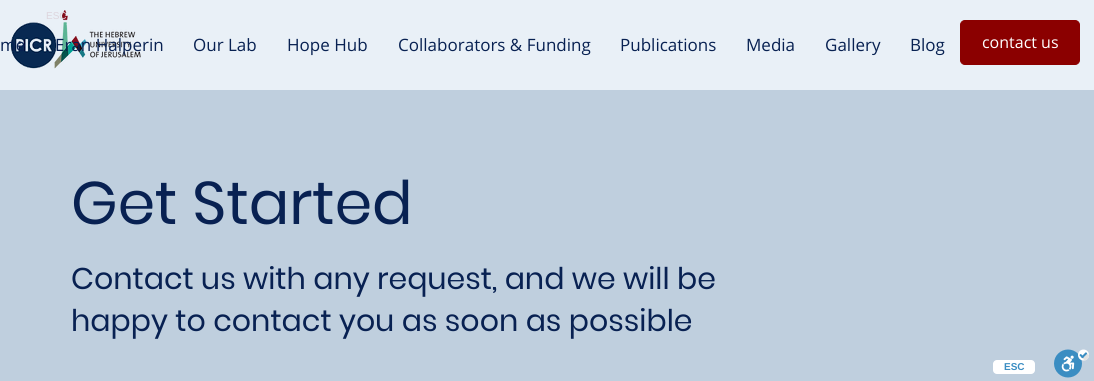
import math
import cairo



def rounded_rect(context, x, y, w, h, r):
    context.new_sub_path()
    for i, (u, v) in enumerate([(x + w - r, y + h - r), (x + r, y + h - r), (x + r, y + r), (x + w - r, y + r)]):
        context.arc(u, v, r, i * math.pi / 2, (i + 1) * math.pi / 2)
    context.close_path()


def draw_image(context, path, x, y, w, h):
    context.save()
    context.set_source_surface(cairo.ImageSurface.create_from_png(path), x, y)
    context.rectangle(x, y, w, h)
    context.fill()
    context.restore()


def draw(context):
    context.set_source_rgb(191 / 255, 207 / 255, 222 / 255)
    context.paint()
    context.set_source_rgb(1, 1, 1)
    rounded_rect(context, 993, 360, 42, 14, 4)
    context.fill()
    draw_image(context, "images/1.png", 1054, 349, 35, 29)
    context.set_source_rgb(233 / 255, 240 / 255, 247 / 255)
    context.rectangle(0, 0, 1094, 90)
    context.fill()
    draw_image(context, "images/2.png", 10, 22, 47, 47)
    draw_image(context, "images/3.png", 54, 10, 87, 59)
    context.set_source_rgb(139 / 255, 0, 0)
    rounded_rect(context, 960.5, 20.5, 119, 44, 4.5)
    context.fill_preserve()
    context.set_line_width(1)
    context.stroke()
    context.select_font_face("Liberation Sans")
    context.set_font_size(10)
    context.set_source_rgb(221 / 255, 213 / 255, 221 / 255)
    context.move_to(46, 19)
    context.show_text("ESC")
    context.select_font_face("Liberation Sans", cairo.FontSlant.NORMAL, cairo.FontWeight.BOLD)
    context.set_source_rgb(58 / 255, 141 / 255, 194 / 255)
    context.move_to(1004, 370)
    context.show_text("ESC")
    context.select_font_face("Open Sans")
    context.set_font_size(17)
    context.set_source_rgb(8 / 255, 33 / 255, 82 / 255)
    context.move_to(0, 51)
    context.show_text("me")
    context.move_to(55, 51)
    context.show_text("Eran Halperin")
    context.move_to(193, 51)
    context.show_text("Our Lab")
    context.move_to(287, 51)
    context.show_text("Hope Hub")
    context.move_to(398, 51)
    context.show_text("Collaborators & Funding")
    context.move_to(620, 51)
    context.show_text("Publications")
    context.move_to(746, 51)
    context.show_text("Media")
    context.move_to(825, 51)
    context.show_text("Gallery")
    context.move_to(910, 51)
    context.show_text("Blog")
    context.set_font_size(16)
    context.set_source_rgb(1, 1, 1)
    context.move_to(982, 48)
    context.show_text("contact us")
    context.select_font_face("Poppins")
    context.set_font_size(60)
    context.set_source_rgb(8 / 255, 33 / 255, 82 / 255)
    context.move_to(71, 224)
    context.show_text("Get Started")
    context.set_font_size(30)
    context.move_to(71, 289)
    context.show_text("Contact us with any request, and we will be")
    context.move_to(71, 331)
    context.show_text("happy to contact you as soon as possible")


surface = cairo.ImageSurface(cairo.Format.RGB24, 1094, 381)
context = cairo.Context(surface)
options = cairo.FontOptions()
options.set_hint_metrics(cairo.HintMetrics.OFF)
options.set_hint_style(cairo.HintStyle.NONE)
context.set_font_options(options)
context.set_miter_limit(4)
draw(context)
surface.write_to_png("out.png")
